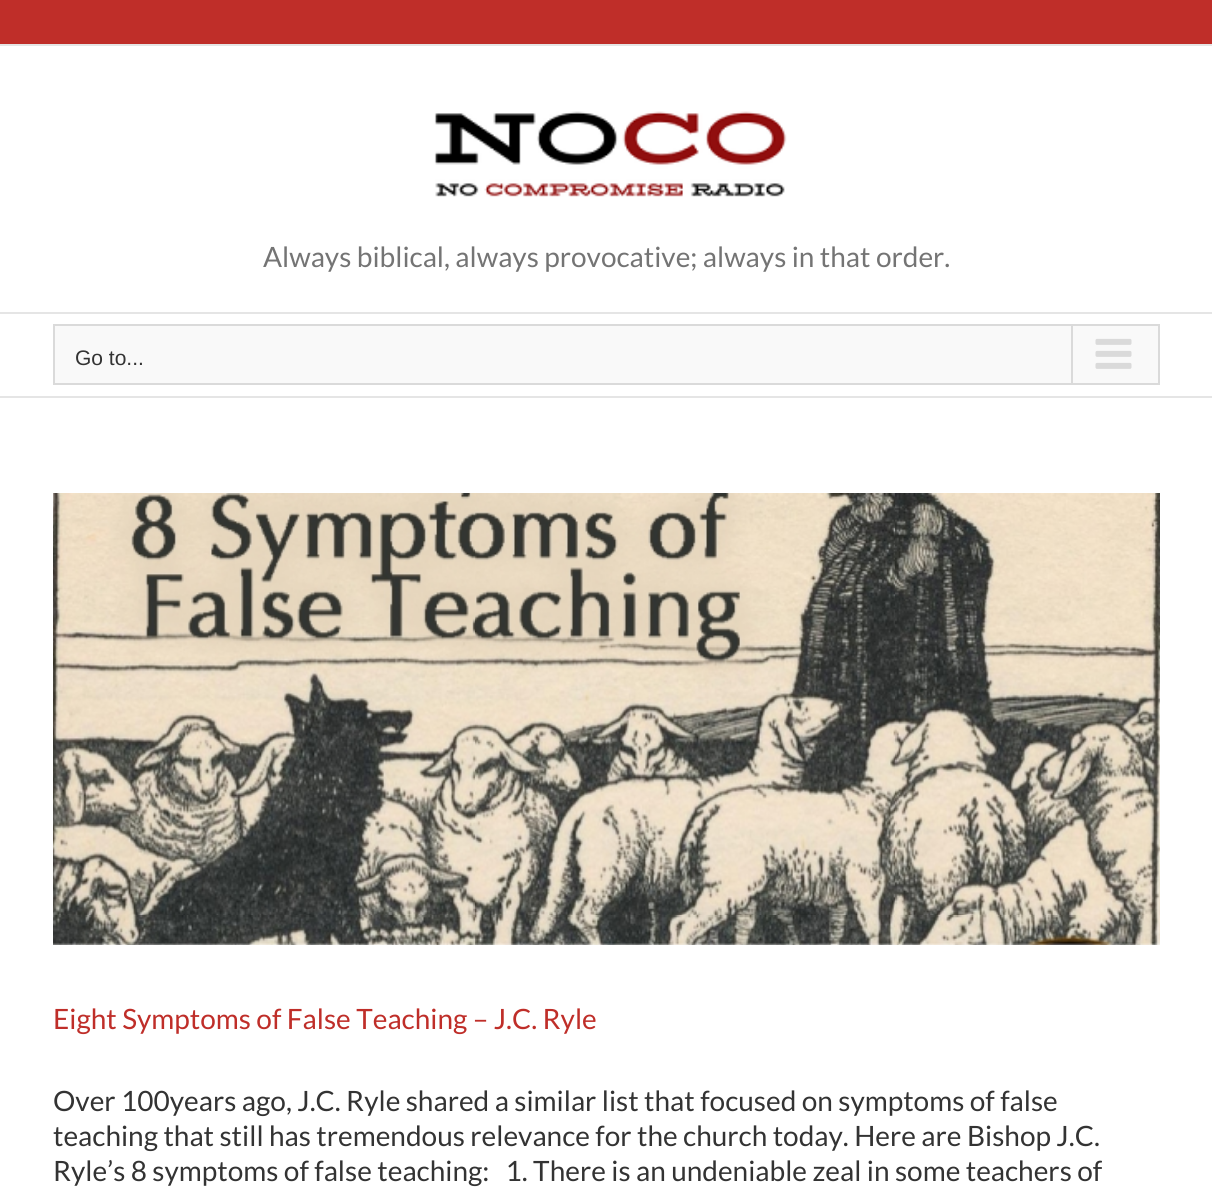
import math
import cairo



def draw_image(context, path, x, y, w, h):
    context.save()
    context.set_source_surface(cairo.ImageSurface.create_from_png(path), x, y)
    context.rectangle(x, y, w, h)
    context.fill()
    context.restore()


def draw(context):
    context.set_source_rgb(1, 1, 1)
    context.paint()
    context.set_source_rgb(191 / 255, 46 / 255, 41 / 255)
    context.rectangle(0, 0, 1212, 44)
    context.fill()
    context.set_source_rgb(229 / 255, 229 / 255, 229 / 255)
    context.rectangle(0, 44, 1212, 2)
    context.fill()
    context.rectangle(0, 312, 1212, 2)
    context.fill()
    draw_image(context, "images/1.png", 434, 111, 353, 86)
    context.rectangle(0, 396, 1212, 2)
    context.fill()
    context.set_source_rgb(249 / 255, 249 / 255, 249 / 255)
    context.rectangle(54, 325, 1105, 59)
    context.fill_preserve()
    context.set_source_rgb(218 / 255, 218 / 255, 218 / 255)
    context.stroke()
    context.rectangle(1071, 326, 2, 57)
    context.fill()
    draw_image(context, "images/2.png", 1095, 338, 37, 31)
    draw_image(context, "images/3.png", 53, 493, 1107, 452)
    context.select_font_face("Lato")
    context.set_font_size(28)
    context.set_source_rgb(116 / 255, 116 / 255, 116 / 255)
    context.move_to(263, 267)
    context.show_text("Always biblical, always provocative; always in that order.")
    context.select_font_face("Liberation Sans")
    context.set_font_size(21)
    context.set_source_rgb(51 / 255, 51 / 255, 51 / 255)
    context.move_to(75, 365)
    context.show_text("Go to...")
    context.select_font_face("Lato")
    context.set_font_size(28)
    context.set_source_rgb(191 / 255, 46 / 255, 41 / 255)
    context.move_to(53, 1029)
    context.show_text("Eight Symptoms of False Teaching – J.C. Ryle")
    context.set_source_rgb(51 / 255, 51 / 255, 51 / 255)
    context.move_to(53, 1111)
    context.show_text("Over 100years ago, J.C. Ryle shared a similar list that focused on symptoms of false")
    context.move_to(53, 1146)
    context.show_text("teaching that still has tremendous relevance for the church today. Here are Bishop J.C.")
    context.move_to(53, 1181)
    context.show_text("Ryle’s 8 symptoms of false teaching:   1. There is an undeniable zeal in some teachers of")


surface = cairo.ImageSurface(cairo.Format.RGB24, 1212, 1192)
context = cairo.Context(surface)
options = cairo.FontOptions()
options.set_hint_metrics(cairo.HintMetrics.OFF)
options.set_hint_style(cairo.HintStyle.NONE)
context.set_font_options(options)
context.set_miter_limit(4)
draw(context)
surface.write_to_png("out.png")
